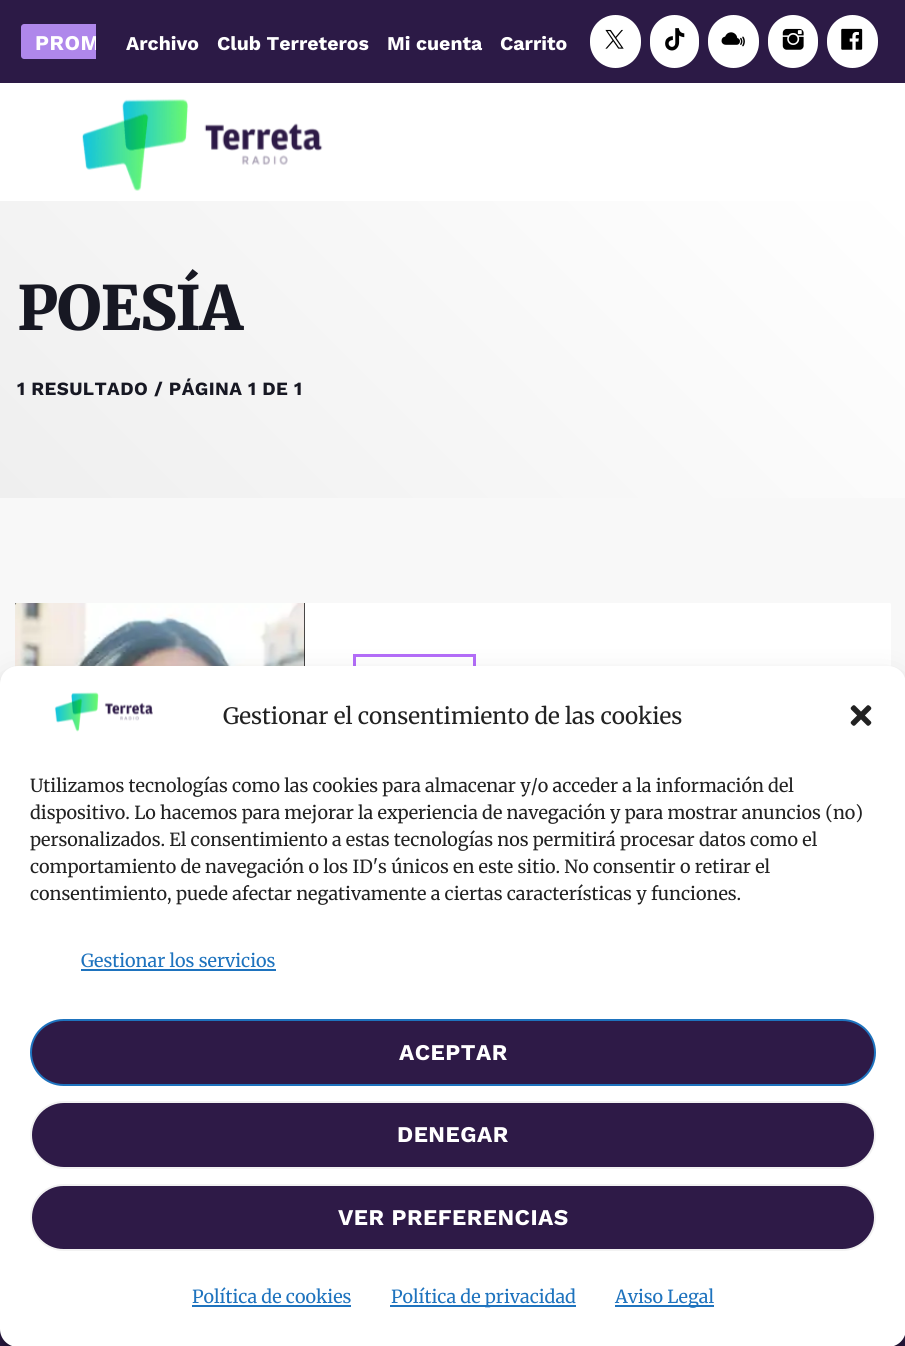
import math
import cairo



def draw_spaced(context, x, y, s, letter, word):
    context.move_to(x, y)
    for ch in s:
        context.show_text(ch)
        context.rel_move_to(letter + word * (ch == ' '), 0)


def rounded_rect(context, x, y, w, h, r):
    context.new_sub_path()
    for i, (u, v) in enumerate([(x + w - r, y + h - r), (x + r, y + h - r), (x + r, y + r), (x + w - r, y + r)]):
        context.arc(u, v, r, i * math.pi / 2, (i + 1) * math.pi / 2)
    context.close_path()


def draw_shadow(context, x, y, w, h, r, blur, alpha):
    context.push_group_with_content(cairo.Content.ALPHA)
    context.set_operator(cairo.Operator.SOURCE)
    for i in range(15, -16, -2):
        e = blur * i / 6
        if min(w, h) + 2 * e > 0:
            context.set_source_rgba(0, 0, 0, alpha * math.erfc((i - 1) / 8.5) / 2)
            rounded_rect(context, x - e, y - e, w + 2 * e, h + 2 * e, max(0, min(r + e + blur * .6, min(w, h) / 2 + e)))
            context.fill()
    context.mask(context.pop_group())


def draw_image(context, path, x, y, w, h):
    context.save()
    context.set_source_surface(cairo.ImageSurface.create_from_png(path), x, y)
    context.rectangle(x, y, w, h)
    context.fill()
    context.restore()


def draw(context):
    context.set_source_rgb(1, 1, 1)
    context.paint()
    context.set_source_rgb(44 / 255, 26 / 255, 70 / 255)
    context.rectangle(0, 0, 905, 83)
    context.fill()
    context.set_source_rgb(175 / 255, 135 / 255, 235 / 255)
    context.new_path()
    context.move_to(24, 24)
    context.line_to(96, 24)
    context.line_to(96, 59)
    context.line_to(24, 59)
    context.curve_to(22.5, 59, 21, 57.5, 21, 56)
    context.line_to(21, 27)
    context.curve_to(21, 25.5, 22.5, 24, 24, 24)
    context.close_path()
    context.fill()
    context.set_source_rgb(1, 1, 1)
    rounded_rect(context, 590, 15, 51, 53, 25.5)
    context.fill()
    draw_image(context, "images/1.png", 605, 29, 19, 20)
    rounded_rect(context, 650, 15, 49, 53, 24.5)
    context.fill()
    draw_image(context, "images/2.png", 665, 28, 20, 23)
    rounded_rect(context, 708, 15, 51, 53, 25.5)
    context.fill()
    draw_image(context, "images/3.png", 721, 32, 24, 15)
    rounded_rect(context, 768, 15, 50, 53, 25)
    context.fill()
    draw_image(context, "images/4.png", 782, 28, 22, 22)
    rounded_rect(context, 827, 15, 51, 53, 25.5)
    context.fill()
    draw_image(context, "images/5.png", 841, 28, 22, 22)
    draw_image(context, "images/6.png", 82, 99, 241, 92)
    gradient = cairo.LinearGradient(152, 650, 754, 49)
    gradient.add_color_stop_rgba(0, 239 / 255, 239 / 255, 239 / 255, 1)
    gradient.add_color_stop_rgba(1, 1, 1, 1, 1)
    context.set_source(gradient)
    context.rectangle(0, 201, 905, 297)
    context.fill()
    context.set_source_rgb(248 / 255, 248 / 255, 248 / 255)
    context.rectangle(0, 498, 905, 186)
    context.fill()
    context.set_source_rgb(1, 1, 1)
    rounded_rect(context, 15, 603, 876, 470, 1.5)
    context.fill()
    context.set_source_rgb(17 / 255, 17 / 255, 17 / 255)
    context.new_path()
    context.move_to(16.5, 603)
    context.line_to(305, 603)
    context.line_to(305, 1073)
    context.line_to(16.5, 1073)
    context.curve_to(15.5, 1073, 15, 1072.5, 15, 1071.5)
    context.line_to(15, 604.5)
    context.curve_to(15, 603.5, 15.5, 603, 16.5, 603)
    context.close_path()
    context.fill()
    draw_image(context, "images/7.png", 15, 603, 290, 64)
    context.rectangle(354.5, 655.5, 120, 27)
    context.set_source_rgb(179 / 255, 109 / 255, 249 / 255)
    context.set_line_width(3)
    context.stroke()
    context.set_source_rgb(44 / 255, 26 / 255, 70 / 255)
    context.rectangle(0, 1329, 905, 17)
    context.fill()
    context.set_source_rgb(0, 0, 0)
    draw_shadow(context, 0, 675, 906, 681, 18, 4.5, 0.23)
    draw_shadow(context, 0, 681, 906, 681, 18, 15, 0.19)
    context.set_source_rgb(1, 1, 1)
    rounded_rect(context, 0, 666, 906, 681, 18)
    context.fill()
    draw_image(context, "images/8.png", 54, 692, 99, 40)
    draw_image(context, "images/9.png", 850, 705, 22, 21)
    context.set_source_rgb(30 / 255, 115 / 255, 190 / 255)
    context.rectangle(81, 969, 195, 2)
    context.fill()
    context.set_source_rgb(46 / 255, 26 / 255, 71 / 255)
    rounded_rect(context, 31, 1020, 844, 65, 32.5)
    context.fill_preserve()
    context.set_source_rgb(30 / 255, 115 / 255, 190 / 255)
    context.set_line_width(2)
    context.stroke()
    context.set_source_rgb(46 / 255, 26 / 255, 71 / 255)
    rounded_rect(context, 31, 1102, 844, 66, 33)
    context.fill_preserve()
    context.set_source_rgb(242 / 255, 242 / 255, 242 / 255)
    context.stroke()
    context.set_source_rgb(46 / 255, 26 / 255, 71 / 255)
    rounded_rect(context, 31, 1185, 844, 65, 32.5)
    context.fill_preserve()
    context.set_source_rgb(242 / 255, 242 / 255, 242 / 255)
    context.stroke()
    context.set_source_rgb(30 / 255, 115 / 255, 190 / 255)
    context.rectangle(192, 1305, 159, 2)
    context.fill()
    context.rectangle(390, 1305, 186, 2)
    context.fill()
    context.rectangle(615, 1305, 99, 2)
    context.fill()
    context.save()
    context.rectangle(21, 15, 75, 53)
    context.clip()
    context.select_font_face("Work Sans", cairo.FontSlant.NORMAL, cairo.FontWeight.BOLD)
    context.set_font_size(21)
    context.set_source_rgb(1, 1, 1)
    draw_spaced(context, 35, 50, "PROM", 0.5, 0)
    context.restore()
    context.select_font_face("Work Sans", cairo.FontSlant.NORMAL, cairo.FontWeight.BOLD)
    context.set_font_size(19.5)
    context.set_source_rgb(1, 1, 1)
    context.move_to(126, 50)
    context.show_text("Archivo")
    context.move_to(217, 50)
    context.show_text("Club Terreteros")
    context.move_to(387, 50)
    context.show_text("Mi cuenta")
    context.move_to(500, 50)
    context.show_text("Carrito")
    context.select_font_face("Merriweather Black")
    context.set_font_size(61)
    context.set_source_rgb(23 / 255, 24 / 255, 35 / 255)
    draw_spaced(context, 17, 330, "POESÍA", -1.25, 0)
    context.select_font_face("Work Sans", cairo.FontSlant.NORMAL, cairo.FontWeight.BOLD)
    context.set_font_size(18.7)
    draw_spaced(context, 17, 395, "1 RESULTADO / PÁGINA 1 DE 1", 0.4, 0)
    context.select_font_face("Merriweather")
    context.set_font_size(22.5)
    context.set_source_rgb(34 / 255, 34 / 255, 34 / 255)
    context.move_to(223, 724)
    context.show_text("Gestionar el consentimiento de las cookies")
    context.set_font_size(18)
    context.move_to(30, 792)
    context.show_text("Utilizamos tecnologías como las cookies para almacenar y/o acceder a la información del")
    context.move_to(30, 819)
    context.show_text("dispositivo. Lo hacemos para mejorar la experiencia de navegación y para mostrar anuncios (no)")
    context.move_to(30, 846)
    context.show_text("personalizados. El consentimiento a estas tecnologías nos permitirá procesar datos como el")
    context.move_to(30, 873)
    context.show_text("comportamiento de navegación o los ID's únicos en este sitio. No consentir o retirar el")
    context.move_to(30, 900)
    context.show_text("consentimiento, puede afectar negativamente a ciertas características y funciones.")
    context.set_source_rgb(30 / 255, 115 / 255, 190 / 255)
    context.move_to(81, 967)
    context.show_text("Gestionar los servicios")
    context.select_font_face("Work Sans", cairo.FontSlant.NORMAL, cairo.FontWeight.BOLD)
    context.set_font_size(22.5)
    context.set_source_rgb(1, 1, 1)
    draw_spaced(context, 399, 1060, "ACEPTAR", 0.5, 0)
    draw_spaced(context, 397, 1142, "DENEGAR", 0.5, 0)
    draw_spaced(context, 338, 1225, "VER PREFERENCIAS", 0.5, 0)
    context.select_font_face("Merriweather")
    context.set_font_size(18)
    context.set_source_rgb(30 / 255, 115 / 255, 190 / 255)
    context.move_to(192, 1303)
    context.show_text("Política de cookies")
    context.move_to(391, 1303)
    context.show_text("Política de privacidad")
    context.move_to(615, 1303)
    context.show_text("Aviso Legal")


surface = cairo.ImageSurface(cairo.Format.RGB24, 905, 1346)
context = cairo.Context(surface)
options = cairo.FontOptions()
options.set_hint_metrics(cairo.HintMetrics.OFF)
options.set_hint_style(cairo.HintStyle.NONE)
context.set_font_options(options)
context.set_miter_limit(4)
draw(context)
surface.write_to_png("out.png")
